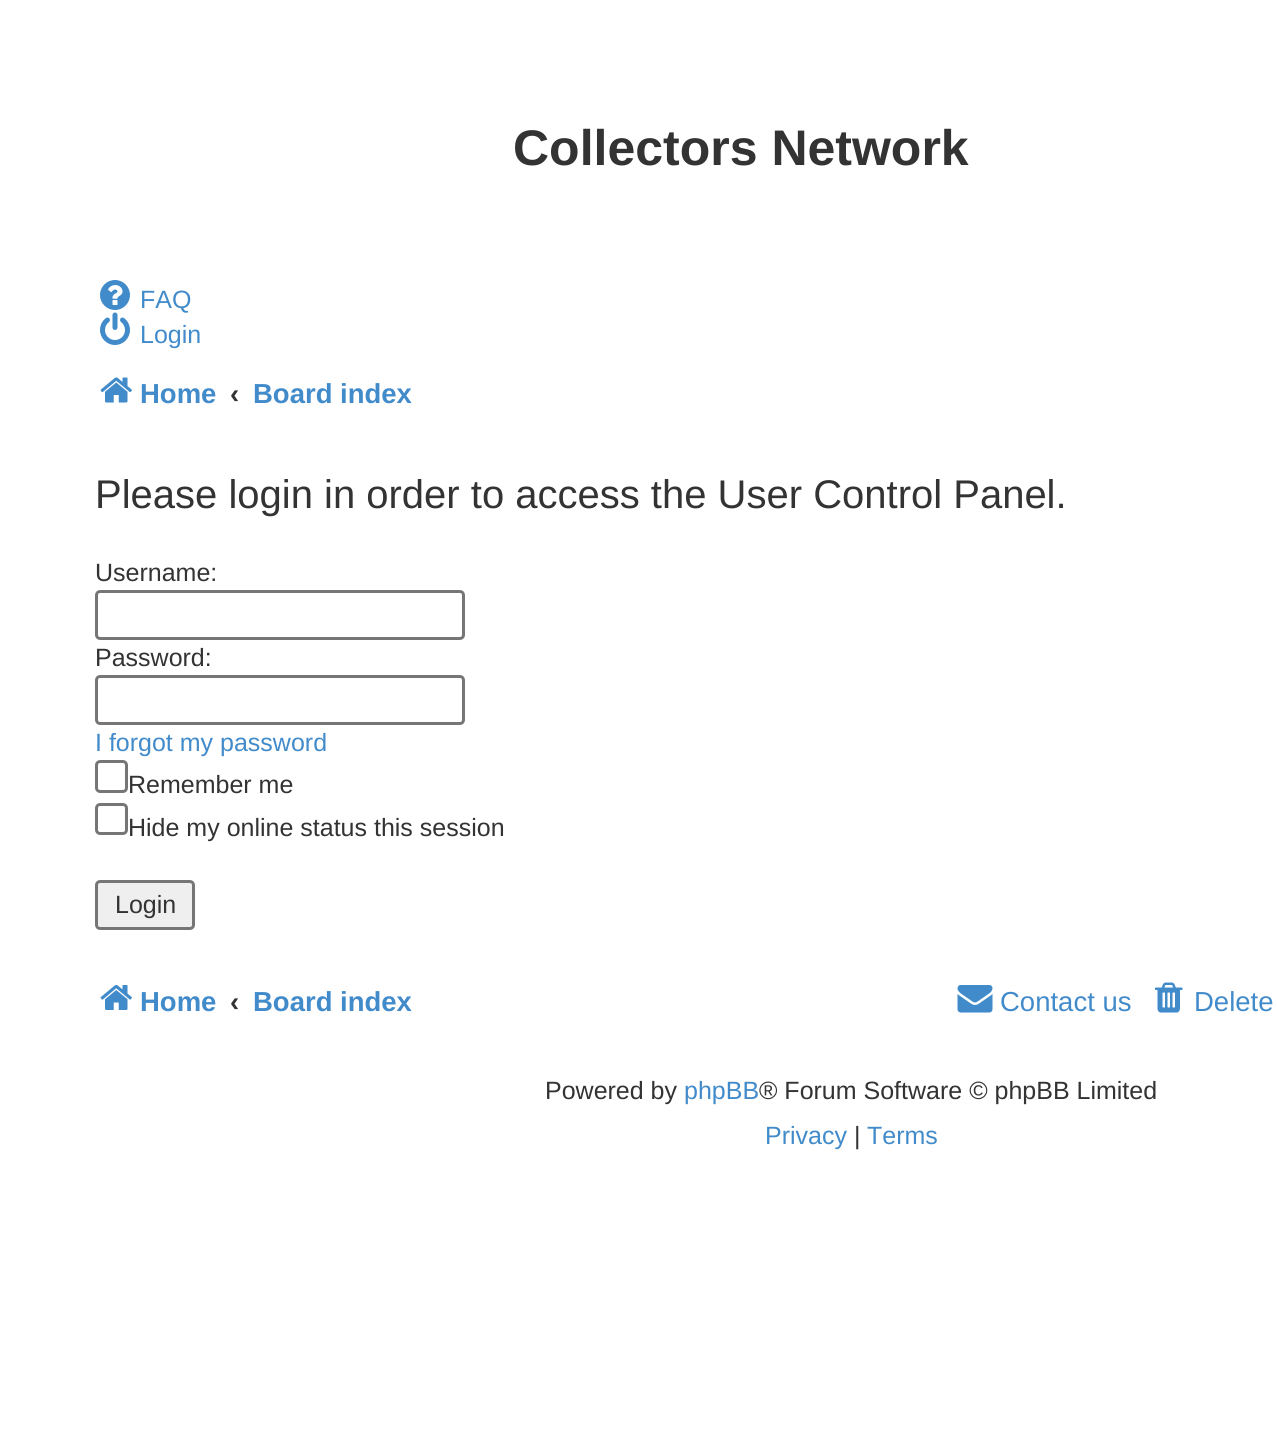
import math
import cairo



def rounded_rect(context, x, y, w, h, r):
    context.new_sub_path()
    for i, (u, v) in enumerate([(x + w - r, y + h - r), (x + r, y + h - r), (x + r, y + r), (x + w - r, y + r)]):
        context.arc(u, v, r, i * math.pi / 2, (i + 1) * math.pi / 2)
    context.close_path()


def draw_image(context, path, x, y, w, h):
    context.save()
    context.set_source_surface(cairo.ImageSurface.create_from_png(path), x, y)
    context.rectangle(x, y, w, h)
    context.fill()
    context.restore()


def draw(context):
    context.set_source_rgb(1, 1, 1)
    context.paint()
    draw_image(context, "images/1.png", 100, 280, 30, 30)
    draw_image(context, "images/2.png", 100, 312, 30, 33)
    draw_image(context, "images/3.png", 100, 377, 32, 26)
    rounded_rect(context, 96.5, 591.5, 367, 47, 3.5)
    context.set_source_rgb(118 / 255, 118 / 255, 118 / 255)
    context.set_line_width(3)
    context.stroke()
    rounded_rect(context, 96.5, 676.5, 367, 47, 3.5)
    context.stroke()
    rounded_rect(context, 96.5, 761.5, 30, 30, 3.5)
    context.stroke()
    rounded_rect(context, 96.5, 804.5, 30, 29, 3.5)
    context.stroke()
    context.set_source_rgb(239 / 255, 239 / 255, 239 / 255)
    rounded_rect(context, 96.5, 881.5, 97, 47, 3.5)
    context.fill_preserve()
    context.set_source_rgb(118 / 255, 118 / 255, 118 / 255)
    context.stroke()
    draw_image(context, "images/4.png", 100, 984, 32, 26)
    draw_image(context, "images/5.png", 957, 985, 36, 28)
    draw_image(context, "images/6.png", 1155, 982, 28, 31)
    context.select_font_face("Liberation Sans", cairo.FontSlant.NORMAL, cairo.FontWeight.BOLD)
    context.set_font_size(50)
    context.set_source_rgb(51 / 255, 51 / 255, 51 / 255)
    context.move_to(513, 165)
    context.show_text("Collectors Network")
    context.select_font_face("Liberation Sans")
    context.set_font_size(25)
    context.set_source_rgb(66 / 255, 139 / 255, 202 / 255)
    context.move_to(140, 308)
    context.show_text("FAQ")
    context.move_to(140, 343)
    context.show_text("Login")
    context.select_font_face("Liberation Sans", cairo.FontSlant.NORMAL, cairo.FontWeight.BOLD)
    context.set_font_size(27.5)
    context.move_to(140, 403)
    context.show_text("Home")
    context.set_source_rgb(51 / 255, 51 / 255, 51 / 255)
    context.move_to(230, 403)
    context.show_text("‹")
    context.set_source_rgb(66 / 255, 139 / 255, 202 / 255)
    context.move_to(253, 403)
    context.show_text("Board index")
    context.select_font_face("Liberation Sans")
    context.set_font_size(40)
    context.set_source_rgb(51 / 255, 51 / 255, 51 / 255)
    context.move_to(95, 508)
    context.show_text("Please login in order to access the User Control Panel.")
    context.set_font_size(25)
    context.move_to(95, 581)
    context.show_text("Username:")
    context.move_to(95, 666)
    context.show_text("Password:")
    context.set_source_rgb(66 / 255, 139 / 255, 202 / 255)
    context.move_to(95, 751)
    context.show_text("I forgot my password")
    context.set_source_rgb(51 / 255, 51 / 255, 51 / 255)
    context.move_to(128, 793)
    context.show_text("Remember me")
    context.move_to(128, 836)
    context.show_text("Hide my online status this session")
    context.move_to(115, 913)
    context.show_text("Login")
    context.select_font_face("Liberation Sans", cairo.FontSlant.NORMAL, cairo.FontWeight.BOLD)
    context.set_font_size(27.5)
    context.set_source_rgb(66 / 255, 139 / 255, 202 / 255)
    context.move_to(140, 1011)
    context.show_text("Home")
    context.set_source_rgb(51 / 255, 51 / 255, 51 / 255)
    context.move_to(230, 1011)
    context.show_text("‹")
    context.set_source_rgb(66 / 255, 139 / 255, 202 / 255)
    context.move_to(253, 1011)
    context.show_text("Board index")
    context.select_font_face("Liberation Sans")
    context.move_to(1000, 1011)
    context.show_text("Contact us")
    context.move_to(1194, 1011)
    context.show_text("Delete")
    context.set_font_size(25)
    context.set_source_rgb(51 / 255, 51 / 255, 51 / 255)
    context.move_to(545, 1099)
    context.show_text("Powered by")
    context.set_source_rgb(66 / 255, 139 / 255, 202 / 255)
    context.move_to(684, 1099)
    context.show_text("phpBB")
    context.set_source_rgb(51 / 255, 51 / 255, 51 / 255)
    context.move_to(759, 1099)
    context.show_text("® Forum Software © phpBB Limited")
    context.set_source_rgb(66 / 255, 139 / 255, 202 / 255)
    context.move_to(765, 1144)
    context.show_text("Privacy")
    context.set_source_rgb(51 / 255, 51 / 255, 51 / 255)
    context.move_to(854, 1144)
    context.show_text("|")
    context.set_source_rgb(66 / 255, 139 / 255, 202 / 255)
    context.move_to(867, 1144)
    context.show_text("Terms")


surface = cairo.ImageSurface(cairo.Format.RGB24, 1277, 1437)
context = cairo.Context(surface)
options = cairo.FontOptions()
options.set_hint_metrics(cairo.HintMetrics.OFF)
options.set_hint_style(cairo.HintStyle.NONE)
context.set_font_options(options)
context.set_miter_limit(4)
draw(context)
surface.write_to_png("out.png")
